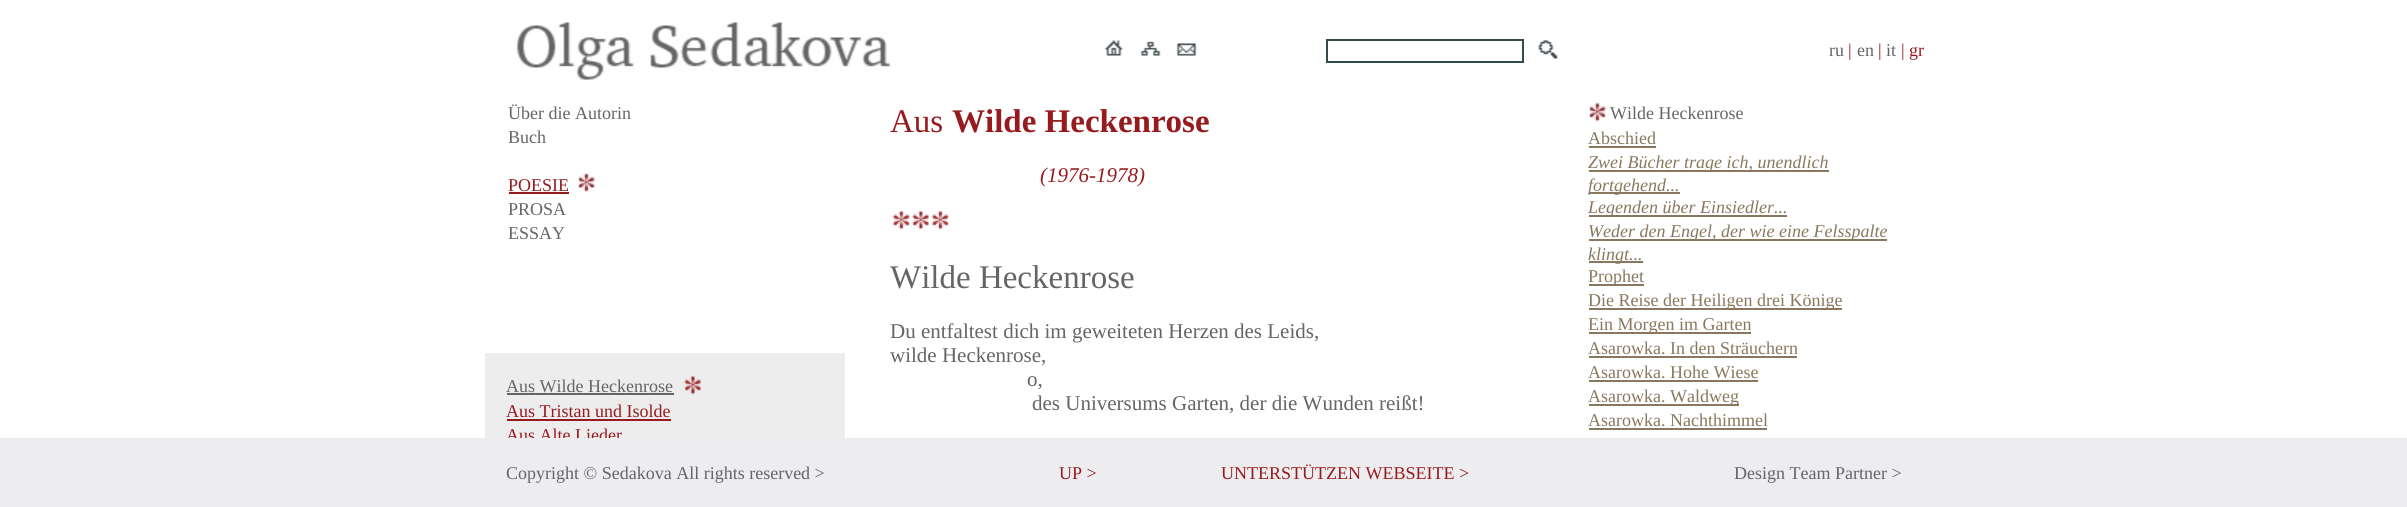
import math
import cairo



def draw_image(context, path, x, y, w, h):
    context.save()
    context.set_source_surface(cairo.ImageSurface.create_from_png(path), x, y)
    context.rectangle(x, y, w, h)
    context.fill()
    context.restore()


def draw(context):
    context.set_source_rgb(1, 1, 1)
    context.paint()
    draw_image(context, "images/1.png", 516, 22, 375, 58)
    draw_image(context, "images/2.png", 1104, 40, 19, 16)
    draw_image(context, "images/3.png", 1140, 41, 21, 15)
    draw_image(context, "images/4.png", 1176, 43, 21, 13)
    context.rectangle(1327, 40, 196, 22)
    context.set_source_rgb(50 / 255, 75 / 255, 77 / 255)
    context.stroke()
    draw_image(context, "images/5.png", 1538, 40, 20, 19)
    context.set_source_rgb(151 / 255, 27 / 255, 30 / 255)
    context.rectangle(509, 192, 60, 2)
    context.fill()
    draw_image(context, "images/6.png", 578, 172, 18, 20)
    context.set_source_rgb(237 / 255, 237 / 255, 238 / 255)
    context.rectangle(485, 353, 360, 85)
    context.fill()
    context.set_source_rgb(99 / 255, 101 / 255, 103 / 255)
    context.rectangle(507, 393, 167, 2)
    context.fill()
    draw_image(context, "images/7.png", 683, 376, 18, 19)
    context.set_source_rgb(151 / 255, 27 / 255, 30 / 255)
    context.rectangle(507, 419, 164, 2)
    context.fill()
    draw_image(context, "images/8.png", 892, 211, 57, 19)
    draw_image(context, "images/9.png", 1589, 102, 18, 20)
    context.set_source_rgb(137 / 255, 120 / 255, 93 / 255)
    context.rectangle(1589, 146, 67, 2)
    context.fill()
    context.rectangle(1589, 170, 240, 2)
    context.fill()
    context.rectangle(1589, 192, 91, 2)
    context.fill()
    context.rectangle(1589, 215, 198, 2)
    context.fill()
    context.rectangle(1589, 239, 298, 2)
    context.fill()
    context.rectangle(1589, 261, 54, 2)
    context.fill()
    context.rectangle(1589, 284, 55, 2)
    context.fill()
    context.rectangle(1589, 308, 253, 2)
    context.fill()
    context.rectangle(1589, 332, 162, 2)
    context.fill()
    context.rectangle(1589, 356, 208, 2)
    context.fill()
    context.rectangle(1589, 380, 169, 2)
    context.fill()
    context.rectangle(1589, 404, 150, 2)
    context.fill()
    context.rectangle(1589, 428, 178, 2)
    context.fill()
    context.select_font_face("Liberation Serif")
    context.set_font_size(18)
    context.set_source_rgb(99 / 255, 101 / 255, 103 / 255)
    context.move_to(1829, 56)
    context.show_text("ru")
    context.set_source_rgb(151 / 255, 27 / 255, 30 / 255)
    context.move_to(1848, 56)
    context.show_text("|")
    context.set_source_rgb(99 / 255, 101 / 255, 103 / 255)
    context.move_to(1857, 56)
    context.show_text("en")
    context.set_source_rgb(151 / 255, 27 / 255, 30 / 255)
    context.move_to(1878, 56)
    context.show_text("|")
    context.set_source_rgb(99 / 255, 101 / 255, 103 / 255)
    context.move_to(1886, 56)
    context.show_text("it")
    context.set_source_rgb(151 / 255, 27 / 255, 30 / 255)
    context.move_to(1901, 56)
    context.show_text("| gr")
    context.set_source_rgb(99 / 255, 101 / 255, 103 / 255)
    context.move_to(508, 119)
    context.show_text("Über die Autorin")
    context.move_to(508, 143)
    context.show_text("Buch")
    context.set_source_rgb(151 / 255, 27 / 255, 30 / 255)
    context.move_to(508, 191)
    context.show_text("POESIE")
    context.set_source_rgb(99 / 255, 101 / 255, 103 / 255)
    context.move_to(508, 215)
    context.show_text("PROSA")
    context.move_to(508, 239)
    context.show_text("ESSAY")
    context.move_to(506, 392)
    context.show_text("Aus Wilde Heckenrose")
    context.set_source_rgb(151 / 255, 27 / 255, 30 / 255)
    context.move_to(506, 417)
    context.show_text("Aus Tristan und Isolde")
    context.move_to(506, 441)
    context.show_text("Aus Alte Lieder")
    context.set_font_size(33)
    context.move_to(890, 132)
    context.show_text("Aus")
    context.select_font_face("Liberation Serif", cairo.FontSlant.NORMAL, cairo.FontWeight.BOLD)
    context.move_to(952, 132)
    context.show_text("Wilde Heckenrose")
    context.select_font_face("Liberation Serif", cairo.FontSlant.ITALIC)
    context.set_font_size(21)
    context.move_to(1040, 182)
    context.show_text("(1976-1978)")
    context.select_font_face("Liberation Serif")
    context.set_font_size(33)
    context.set_source_rgb(99 / 255, 101 / 255, 103 / 255)
    context.move_to(890, 288)
    context.show_text("Wilde Heckenrose")
    context.set_font_size(21)
    context.move_to(890, 338)
    context.show_text("Du entfaltest dich im geweiteten Herzen des Leids,")
    context.move_to(890, 362)
    context.show_text("wilde Heckenrose,")
    context.move_to(1027, 386)
    context.show_text("o,")
    context.move_to(1032, 410)
    context.show_text("des Universums Garten, der die Wunden reißt!")
    context.set_font_size(18)
    context.move_to(1610, 119)
    context.show_text("Wilde Heckenrose")
    context.set_source_rgb(137 / 255, 120 / 255, 93 / 255)
    context.move_to(1588, 144)
    context.show_text("Abschied")
    context.select_font_face("Liberation Serif", cairo.FontSlant.ITALIC)
    context.move_to(1588, 168)
    context.show_text("Zwei Bücher trage ich, unendlich")
    context.move_to(1588, 191)
    context.show_text("fortgehend...")
    context.move_to(1588, 213)
    context.show_text("Legenden über Einsiedler...")
    context.move_to(1588, 237)
    context.show_text("Weder den Engel, der wie eine Felsspalte")
    context.move_to(1588, 260)
    context.show_text("klingt...")
    context.select_font_face("Liberation Serif")
    context.move_to(1588, 282)
    context.show_text("Prophet")
    context.move_to(1588, 306)
    context.show_text("Die Reise der Heiligen drei Könige")
    context.move_to(1588, 330)
    context.show_text("Ein Morgen im Garten")
    context.move_to(1588, 354)
    context.show_text("Asarowka. In den Sträuchern")
    context.move_to(1588, 378)
    context.show_text("Asarowka. Hohe Wiese")
    context.move_to(1588, 402)
    context.show_text("Asarowka. Waldweg")
    context.move_to(1588, 426)
    context.show_text("Asarowka. Nachthimmel")
    context.set_source_rgb(237 / 255, 237 / 255, 239 / 255)
    context.rectangle(0, 438, 2407, 69)
    context.fill()
    context.set_source_rgb(99 / 255, 101 / 255, 103 / 255)
    context.move_to(506, 479)
    context.show_text("Copyright © Sedakova All rights reserved >")
    context.set_source_rgb(151 / 255, 27 / 255, 30 / 255)
    context.move_to(1059, 479)
    context.show_text("UP >")
    context.move_to(1221, 479)
    context.show_text("UNTERSTÜTZEN WEBSEITE >")
    context.set_source_rgb(99 / 255, 101 / 255, 103 / 255)
    context.move_to(1734, 479)
    context.show_text("Design Team Partner >")


surface = cairo.ImageSurface(cairo.Format.RGB24, 2407, 507)
context = cairo.Context(surface)
options = cairo.FontOptions()
options.set_hint_metrics(cairo.HintMetrics.OFF)
options.set_hint_style(cairo.HintStyle.NONE)
context.set_font_options(options)
context.set_miter_limit(4)
draw(context)
surface.write_to_png("out.png")
